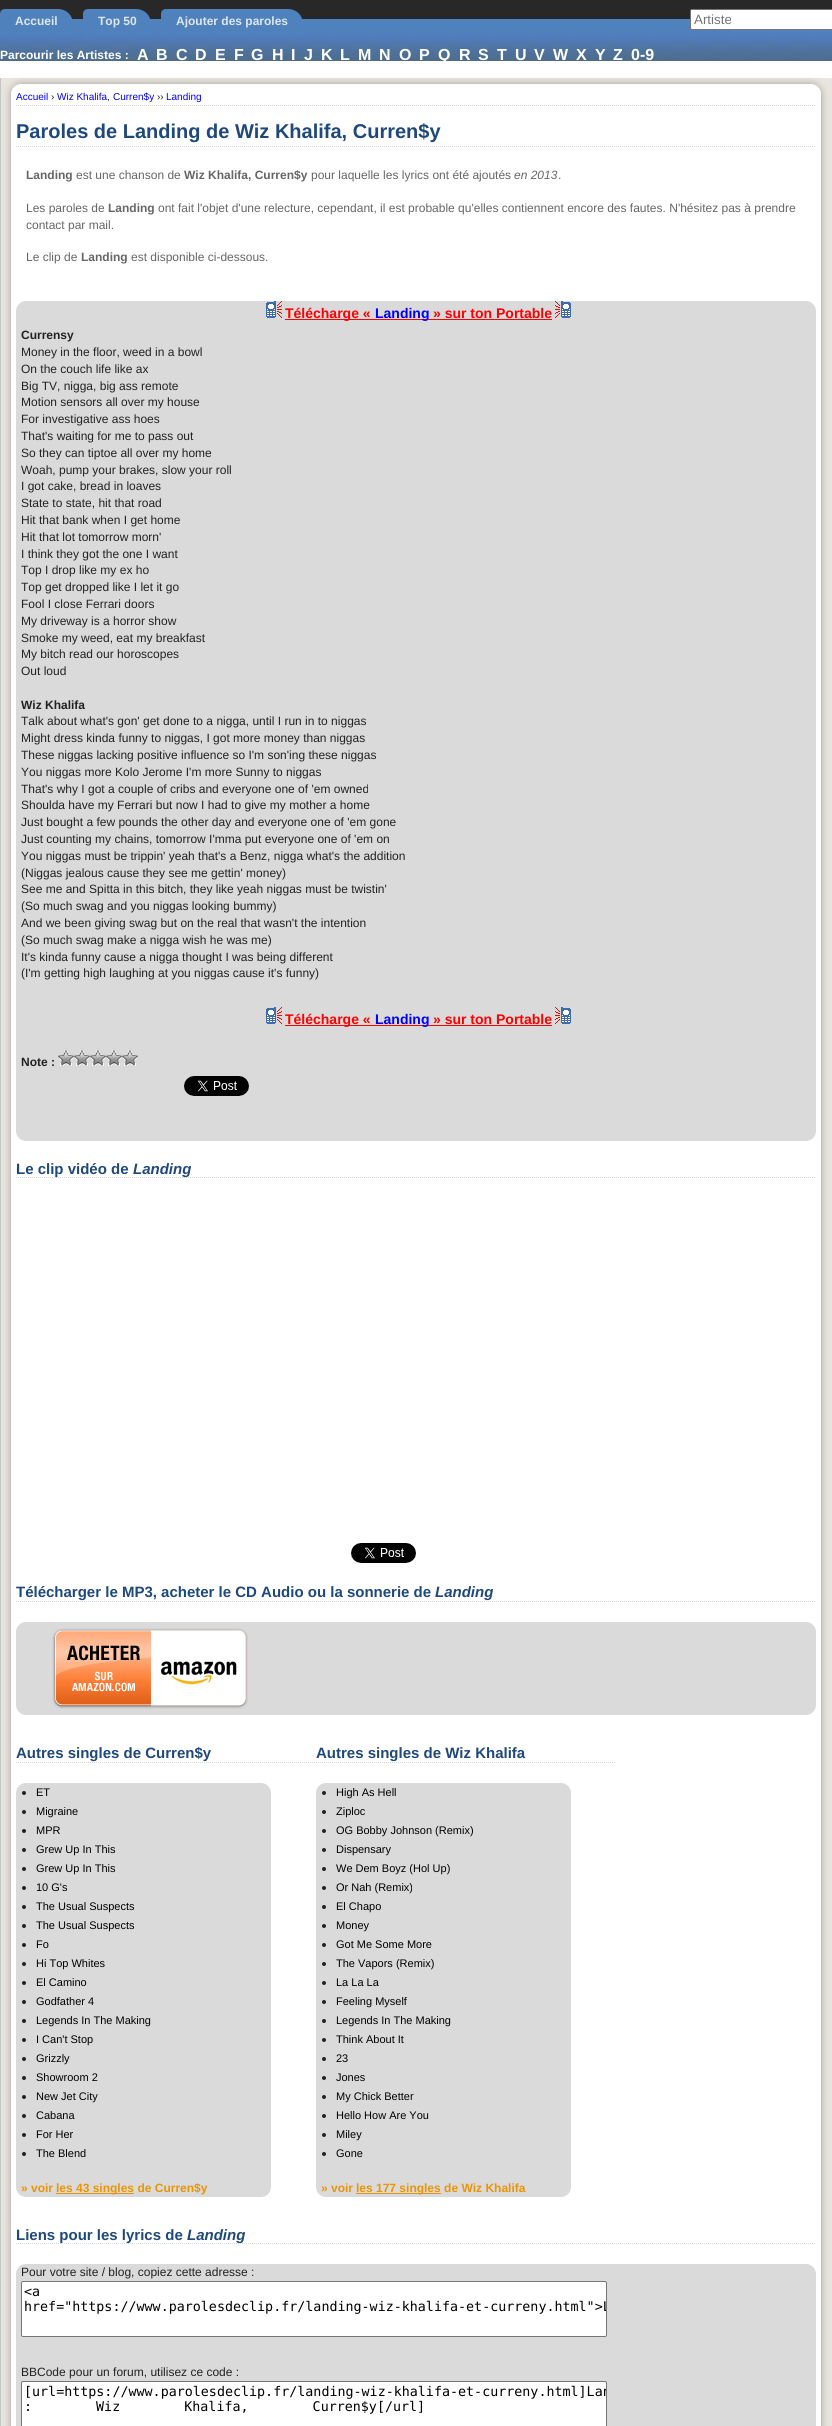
import math
import cairo



def draw_spaced(context, x, y, s, letter, word):
    context.move_to(x, y)
    for ch in s:
        context.show_text(ch)
        context.rel_move_to(letter + word * (ch == ' '), 0)


def rounded_rect(context, x, y, w, h, r):
    context.new_sub_path()
    for i, (u, v) in enumerate([(x + w - r, y + h - r), (x + r, y + h - r), (x + r, y + r), (x + w - r, y + r)]):
        context.arc(u, v, r, i * math.pi / 2, (i + 1) * math.pi / 2)
    context.close_path()


def draw_shadow(context, x, y, w, h, r, blur, alpha):
    context.push_group_with_content(cairo.Content.ALPHA)
    context.set_operator(cairo.Operator.SOURCE)
    for i in range(15, -16, -2):
        e = blur * i / 6
        if min(w, h) + 2 * e > 0:
            context.set_source_rgba(0, 0, 0, alpha * math.erfc((i - 1) / 8.5) / 2)
            rounded_rect(context, x - e, y - e, w + 2 * e, h + 2 * e, max(0, min(r + e + blur * .6, min(w, h) / 2 + e)))
            context.fill()
    context.mask(context.pop_group())


def draw_image(context, path, x, y, w, h):
    context.save()
    context.set_source_surface(cairo.ImageSurface.create_from_png(path), x, y)
    context.rectangle(x, y, w, h)
    context.fill()
    context.restore()


def draw(context):
    context.set_source_rgb(1, 1, 1)
    context.paint()
    draw_image(context, "images/1.png", 0, 0, 832, 61)
    context.set_source_rgb(79 / 255, 129 / 255, 189 / 255)
    context.new_path()
    context.move_to(5, 9)
    context.line_to(58, 9)
    context.curve_to(66.5, 9, 73, 15.5, 73, 24)
    context.line_to(73, 36)
    context.line_to(0, 36)
    context.line_to(0, 14)
    context.curve_to(0, 11, 2, 9, 5, 9)
    context.close_path()
    context.fill()
    context.new_path()
    context.move_to(88, 9)
    context.line_to(136, 9)
    context.curve_to(144.5, 9, 151, 15.5, 151, 24)
    context.line_to(151, 36)
    context.line_to(83, 36)
    context.line_to(83, 14)
    context.curve_to(83, 11, 85, 9, 88, 9)
    context.close_path()
    context.fill()
    context.new_path()
    context.move_to(166, 9)
    context.line_to(288, 9)
    context.curve_to(296.5, 9, 303, 15.5, 303, 24)
    context.line_to(303, 36)
    context.line_to(161, 36)
    context.line_to(161, 14)
    context.curve_to(161, 11, 163, 9, 166, 9)
    context.close_path()
    context.fill()
    context.set_source_rgb(1, 1, 1)
    rounded_rect(context, 690.5, 9.5, 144, 20, 1.5)
    context.fill_preserve()
    context.set_source_rgb(118 / 255, 118 / 255, 118 / 255)
    context.set_line_width(1)
    context.stroke()
    context.set_source_rgb(232 / 255, 229 / 255, 222 / 255)
    context.rectangle(1, 78, 831, 2348)
    context.fill()
    context.set_source_rgb(197 / 255, 197 / 255, 197 / 255)
    context.rectangle(0, 78, 1, 2348)
    context.fill()
    context.set_source_rgb(0, 0, 0)
    draw_shadow(context, 11, 84, 810, 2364, 10, 4, 0.3)
    context.set_source_rgb(1, 1, 1)
    rounded_rect(context, 11, 84, 810, 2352, 10)
    context.fill()
    context.new_path()
    context.move_to(16, 105.5)
    context.line_to(816, 105.5)
    context.set_source_rgb(218 / 255, 218 / 255, 218 / 255)
    context.set_dash([1, 1])
    context.stroke()
    context.new_path()
    context.move_to(16, 146.5)
    context.line_to(816, 146.5)
    context.stroke()
    rounded_rect(context, 16, 301, 800, 840, 10)
    context.fill()
    draw_image(context, "images/2.png", 266, 301, 16, 17)
    context.set_source_rgb(1, 0, 0)
    context.rectangle(285, 319, 267, 1)
    context.fill()
    draw_image(context, "images/3.png", 555, 301, 16, 17)
    draw_image(context, "images/2.png", 266, 1007, 16, 17)
    context.rectangle(285, 1025, 267, 1)
    context.fill()
    draw_image(context, "images/3.png", 555, 1007, 16, 17)
    draw_image(context, "images/4.png", 58, 1050, 16, 16)
    draw_image(context, "images/4.png", 74, 1050, 16, 16)
    draw_image(context, "images/4.png", 90, 1050, 16, 16)
    draw_image(context, "images/4.png", 106, 1050, 16, 16)
    draw_image(context, "images/4.png", 122, 1050, 16, 16)
    draw_image(context, "images/5.png", 184, 1076, 65, 20)
    context.new_path()
    context.move_to(16, 1177.5)
    context.line_to(816, 1177.5)
    context.set_source_rgb(218 / 255, 218 / 255, 218 / 255)
    context.stroke()
    draw_image(context, "images/6.png", 351, 1543, 65, 20)
    context.new_path()
    context.move_to(16, 1601.5)
    context.line_to(816, 1601.5)
    context.stroke()
    rounded_rect(context, 16, 1622, 800, 93, 10)
    context.fill()
    draw_image(context, "images/7.png", 52, 1628, 196, 81)
    context.new_path()
    context.move_to(16, 1762.5)
    context.line_to(316, 1762.5)
    context.stroke()
    rounded_rect(context, 16, 1783, 255, 414, 10)
    context.fill()
    context.set_source_rgb(34 / 255, 34 / 255, 34 / 255)
    context.arc(24, 1793, 2, 0, 2 * math.pi)
    context.fill()
    context.arc(24, 1812, 2, 0, 2 * math.pi)
    context.fill()
    context.arc(24, 1831, 2, 0, 2 * math.pi)
    context.fill()
    context.arc(24, 1850, 2, 0, 2 * math.pi)
    context.fill()
    context.arc(24, 1869, 2, 0, 2 * math.pi)
    context.fill()
    context.arc(24, 1888, 2, 0, 2 * math.pi)
    context.fill()
    context.arc(24, 1907, 2, 0, 2 * math.pi)
    context.fill()
    context.arc(24, 1926, 2, 0, 2 * math.pi)
    context.fill()
    context.arc(24, 1945, 2, 0, 2 * math.pi)
    context.fill()
    context.arc(24, 1964, 2, 0, 2 * math.pi)
    context.fill()
    context.arc(24, 1983, 2, 0, 2 * math.pi)
    context.fill()
    context.arc(24, 2002, 2, 0, 2 * math.pi)
    context.fill()
    context.arc(24, 2021, 2, 0, 2 * math.pi)
    context.fill()
    context.arc(24, 2040, 2, 0, 2 * math.pi)
    context.fill()
    context.arc(24, 2059, 2, 0, 2 * math.pi)
    context.fill()
    context.arc(24, 2078, 2, 0, 2 * math.pi)
    context.fill()
    context.arc(24, 2097, 2, 0, 2 * math.pi)
    context.fill()
    context.arc(24, 2116, 2, 0, 2 * math.pi)
    context.fill()
    context.arc(24, 2135, 2, 0, 2 * math.pi)
    context.fill()
    context.arc(24, 2154, 2, 0, 2 * math.pi)
    context.fill()
    context.set_source_rgb(234 / 255, 148 / 255, 3 / 255)
    context.rectangle(56, 2193, 78, 1)
    context.fill()
    context.new_path()
    context.move_to(316, 1762.5)
    context.line_to(616, 1762.5)
    context.set_source_rgb(218 / 255, 218 / 255, 218 / 255)
    context.stroke()
    rounded_rect(context, 316, 1783, 255, 414, 10)
    context.fill()
    context.set_source_rgb(34 / 255, 34 / 255, 34 / 255)
    context.arc(324, 1793, 2, 0, 2 * math.pi)
    context.fill()
    context.arc(324, 1812, 2, 0, 2 * math.pi)
    context.fill()
    context.arc(324, 1831, 2, 0, 2 * math.pi)
    context.fill()
    context.arc(324, 1850, 2, 0, 2 * math.pi)
    context.fill()
    context.arc(324, 1869, 2, 0, 2 * math.pi)
    context.fill()
    context.arc(324, 1888, 2, 0, 2 * math.pi)
    context.fill()
    context.arc(324, 1907, 2, 0, 2 * math.pi)
    context.fill()
    context.arc(324, 1926, 2, 0, 2 * math.pi)
    context.fill()
    context.arc(324, 1945, 2, 0, 2 * math.pi)
    context.fill()
    context.arc(324, 1964, 2, 0, 2 * math.pi)
    context.fill()
    context.arc(324, 1983, 2, 0, 2 * math.pi)
    context.fill()
    context.arc(324, 2002, 2, 0, 2 * math.pi)
    context.fill()
    context.arc(324, 2021, 2, 0, 2 * math.pi)
    context.fill()
    context.arc(324, 2040, 2, 0, 2 * math.pi)
    context.fill()
    context.arc(324, 2059, 2, 0, 2 * math.pi)
    context.fill()
    context.arc(324, 2078, 2, 0, 2 * math.pi)
    context.fill()
    context.arc(324, 2097, 2, 0, 2 * math.pi)
    context.fill()
    context.arc(324, 2116, 2, 0, 2 * math.pi)
    context.fill()
    context.arc(324, 2135, 2, 0, 2 * math.pi)
    context.fill()
    context.arc(324, 2154, 2, 0, 2 * math.pi)
    context.fill()
    context.set_source_rgb(234 / 255, 148 / 255, 3 / 255)
    context.rectangle(356, 2193, 85, 1)
    context.fill()
    context.new_path()
    context.move_to(16, 2243.5)
    context.line_to(816, 2243.5)
    context.set_source_rgb(218 / 255, 218 / 255, 218 / 255)
    context.stroke()
    rounded_rect(context, 16, 2264, 800, 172, 10)
    context.fill()
    context.set_source_rgb(1, 1, 1)
    rounded_rect(context, 21.5, 2281.5, 585, 55, 1.5)
    context.fill_preserve()
    context.set_source_rgb(118 / 255, 118 / 255, 118 / 255)
    context.set_dash([])
    context.stroke()
    context.set_source_rgb(1, 1, 1)
    rounded_rect(context, 21.5, 2381.5, 585, 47, 1.5)
    context.fill_preserve()
    context.set_source_rgb(118 / 255, 118 / 255, 118 / 255)
    context.stroke()
    context.select_font_face("Liberation Sans", cairo.FontSlant.NORMAL, cairo.FontWeight.BOLD)
    context.set_font_size(12)
    context.set_source_rgb(220 / 255, 230 / 255, 242 / 255)
    context.move_to(15, 25)
    context.show_text("Accueil")
    context.move_to(98, 25)
    context.show_text("Top 50")
    context.move_to(176, 25)
    context.show_text("Ajouter des paroles")
    context.select_font_face("Liberation Sans")
    context.set_font_size(13.35)
    context.set_source_rgb(117 / 255, 117 / 255, 117 / 255)
    context.move_to(694, 24)
    context.show_text("Artiste")
    context.select_font_face("Liberation Sans", cairo.FontSlant.NORMAL, cairo.FontWeight.BOLD)
    context.set_font_size(12)
    context.set_source_rgb(1, 1, 1)
    context.move_to(0, 59)
    context.show_text("Parcourir les Artistes :")
    context.set_font_size(16)
    context.move_to(137, 60)
    context.show_text("A")
    context.move_to(156, 60)
    context.show_text("B")
    context.move_to(176, 60)
    context.show_text("C")
    context.move_to(195, 60)
    context.show_text("D")
    context.move_to(215, 60)
    context.show_text("E")
    context.move_to(234, 60)
    context.show_text("F")
    context.move_to(251, 60)
    context.show_text("G")
    context.move_to(272, 60)
    context.show_text("H")
    context.move_to(291, 60)
    context.show_text("I")
    context.move_to(304, 60)
    context.show_text("J")
    context.move_to(321, 60)
    context.show_text("K")
    context.move_to(340, 60)
    context.show_text("L")
    context.move_to(358, 60)
    context.show_text("M")
    context.move_to(379, 60)
    context.show_text("N")
    context.move_to(399, 60)
    context.show_text("O")
    context.move_to(419, 60)
    context.show_text("P")
    context.move_to(438, 60)
    context.show_text("Q")
    context.move_to(459, 60)
    context.show_text("R")
    context.move_to(478, 60)
    context.show_text("S")
    context.move_to(497, 60)
    context.show_text("T")
    context.move_to(515, 60)
    context.show_text("U")
    context.move_to(534, 60)
    context.show_text("V")
    context.move_to(553, 60)
    context.show_text("W")
    context.move_to(576, 60)
    context.show_text("X")
    context.move_to(595, 60)
    context.show_text("Y")
    context.move_to(613, 60)
    context.show_text("Z")
    context.move_to(631, 60)
    context.show_text("0-9")
    context.select_font_face("Liberation Sans")
    context.set_font_size(10)
    context.set_source_rgb(0, 0, 1)
    context.move_to(16, 100)
    context.show_text("Accueil")
    context.set_source_rgb(34 / 255, 34 / 255, 34 / 255)
    context.move_to(51, 100)
    context.show_text("›")
    context.set_source_rgb(0, 0, 1)
    context.move_to(57, 100)
    context.show_text("Wiz Khalifa")
    context.set_source_rgb(34 / 255, 34 / 255, 34 / 255)
    context.move_to(107, 100)
    context.show_text(",")
    context.set_source_rgb(0, 0, 1)
    context.move_to(113, 100)
    context.show_text("Curren$y")
    context.set_source_rgb(34 / 255, 34 / 255, 34 / 255)
    context.move_to(157, 100)
    context.show_text("››")
    context.set_source_rgb(0, 0, 1)
    context.move_to(166, 100)
    context.show_text("Landing")
    context.select_font_face("Liberation Sans", cairo.FontSlant.NORMAL, cairo.FontWeight.BOLD)
    context.set_font_size(20)
    context.set_source_rgb(31 / 255, 73 / 255, 125 / 255)
    context.move_to(16, 138)
    context.show_text("Paroles de Landing de Wiz Khalifa, Curren$y")
    context.set_font_size(12)
    context.set_source_rgb(102 / 255, 102 / 255, 102 / 255)
    context.move_to(26, 179)
    context.show_text("Landing")
    context.select_font_face("Liberation Sans")
    context.move_to(76, 179)
    context.show_text("est une chanson de")
    context.select_font_face("Liberation Sans", cairo.FontSlant.NORMAL, cairo.FontWeight.BOLD)
    context.move_to(184, 179)
    context.show_text("Wiz Khalifa, Curren$y")
    context.select_font_face("Liberation Sans")
    context.move_to(311, 179)
    context.show_text("pour laquelle les lyrics ont été ajoutés")
    context.select_font_face("Liberation Sans", cairo.FontSlant.ITALIC)
    context.move_to(514, 179)
    context.show_text("en 2013")
    context.select_font_face("Liberation Sans")
    context.move_to(558, 179)
    context.show_text(".")
    context.move_to(26, 212)
    context.show_text("Les paroles de")
    context.select_font_face("Liberation Sans", cairo.FontSlant.NORMAL, cairo.FontWeight.BOLD)
    context.move_to(108, 212)
    context.show_text("Landing")
    context.select_font_face("Liberation Sans")
    context.move_to(158, 212)
    context.show_text("ont fait l'objet d'une relecture, cependant, il est probable qu'elles contiennent encore des fautes. N'hésitez pas à prendre")
    context.move_to(26, 229)
    context.show_text("contact par mail.")
    context.move_to(26, 261)
    context.show_text("Le clip de")
    context.select_font_face("Liberation Sans", cairo.FontSlant.NORMAL, cairo.FontWeight.BOLD)
    context.move_to(81, 261)
    context.show_text("Landing")
    context.select_font_face("Liberation Sans")
    context.move_to(131, 261)
    context.show_text("est disponible ci-dessous.")
    context.select_font_face("Liberation Sans", cairo.FontSlant.NORMAL, cairo.FontWeight.BOLD)
    context.set_font_size(14)
    context.set_source_rgb(1, 0, 0)
    context.move_to(285, 318)
    context.show_text("Télécharge «")
    context.set_source_rgb(0, 0, 1)
    context.move_to(375, 318)
    context.show_text("Landing")
    context.set_source_rgb(1, 0, 0)
    context.move_to(433, 318)
    context.show_text("» sur ton Portable")
    context.set_font_size(12)
    context.set_source_rgb(34 / 255, 34 / 255, 34 / 255)
    context.move_to(21, 339)
    context.show_text("Currensy")
    context.select_font_face("Liberation Sans")
    context.move_to(21, 356)
    context.show_text("Money in the floor, weed in a bowl")
    context.move_to(21, 373)
    context.show_text("On the couch life like ax")
    context.move_to(21, 390)
    context.show_text("Big TV, nigga, big ass remote")
    context.move_to(21, 406)
    context.show_text("Motion sensors all over my house")
    context.move_to(21, 423)
    context.show_text("For investigative ass hoes")
    context.move_to(21, 440)
    context.show_text("That's waiting for me to pass out")
    context.move_to(21, 457)
    context.show_text("So they can tiptoe all over my home")
    context.move_to(21, 474)
    context.show_text("Woah, pump your brakes, slow your roll")
    context.move_to(21, 490)
    context.show_text("I got cake, bread in loaves")
    context.move_to(21, 507)
    context.show_text("State to state, hit that road")
    context.move_to(21, 524)
    context.show_text("Hit that bank when I get home")
    context.move_to(21, 541)
    context.show_text("Hit that lot tomorrow morn'")
    context.move_to(21, 558)
    context.show_text("I think they got the one I want")
    context.move_to(21, 574)
    context.show_text("Top I drop like my ex ho")
    context.move_to(21, 591)
    context.show_text("Top get dropped like I let it go")
    context.move_to(21, 608)
    context.show_text("Fool I close Ferrari doors")
    context.move_to(21, 625)
    context.show_text("My driveway is a horror show")
    context.move_to(21, 642)
    context.show_text("Smoke my weed, eat my breakfast")
    context.move_to(21, 658)
    context.show_text("My bitch read our horoscopes")
    context.move_to(21, 675)
    context.show_text("Out loud")
    context.select_font_face("Liberation Sans", cairo.FontSlant.NORMAL, cairo.FontWeight.BOLD)
    context.move_to(21, 709)
    context.show_text("Wiz Khalifa")
    context.select_font_face("Liberation Sans")
    context.move_to(21, 725)
    context.show_text("Talk about what's gon' get done to a nigga, until I run in to niggas")
    context.move_to(21, 742)
    context.show_text("Might dress kinda funny to niggas, I got more money than niggas")
    context.move_to(21, 759)
    context.show_text("These niggas lacking positive influence so I'm son'ing these niggas")
    context.move_to(21, 776)
    context.show_text("You niggas more Kolo Jerome I'm more Sunny to niggas")
    context.move_to(21, 793)
    context.show_text("That's why I got a couple of cribs and everyone one of 'em owned")
    context.move_to(21, 809)
    context.show_text("Shoulda have my Ferrari but now I had to give my mother a home")
    context.move_to(21, 826)
    context.show_text("Just bought a few pounds the other day and everyone one of 'em gone")
    context.move_to(21, 843)
    context.show_text("Just counting my chains, tomorrow I'mma put everyone one of 'em on")
    context.move_to(21, 860)
    context.show_text("You niggas must be trippin' yeah that's a Benz, nigga what's the addition")
    context.move_to(21, 877)
    context.show_text("(Niggas jealous cause they see me gettin' money)")
    context.move_to(21, 893)
    context.show_text("See me and Spitta in this bitch, they like yeah niggas must be twistin'")
    context.move_to(21, 910)
    context.show_text("(So much swag and you niggas looking bummy)")
    context.move_to(21, 927)
    context.show_text("And we been giving swag but on the real that wasn't the intention")
    context.move_to(21, 944)
    context.show_text("(So much swag make a nigga wish he was me)")
    context.move_to(21, 961)
    context.show_text("It's kinda funny cause a nigga thought I was being different")
    context.move_to(21, 977)
    context.show_text("(I'm getting high laughing at you niggas cause it's funny)")
    context.select_font_face("Liberation Sans", cairo.FontSlant.NORMAL, cairo.FontWeight.BOLD)
    context.set_font_size(14)
    context.set_source_rgb(1, 0, 0)
    context.move_to(285, 1024)
    context.show_text("Télécharge «")
    context.set_source_rgb(0, 0, 1)
    context.move_to(375, 1024)
    context.show_text("Landing")
    context.set_source_rgb(1, 0, 0)
    context.move_to(433, 1024)
    context.show_text("» sur ton Portable")
    context.set_font_size(12)
    context.set_source_rgb(34 / 255, 34 / 255, 34 / 255)
    context.move_to(21, 1066)
    context.show_text("Note :")
    context.set_font_size(15)
    context.set_source_rgb(31 / 255, 73 / 255, 125 / 255)
    context.move_to(16, 1174)
    context.show_text("Le clip vidéo de")
    context.select_font_face("Liberation Sans", cairo.FontSlant.ITALIC, cairo.FontWeight.BOLD)
    context.move_to(133, 1174)
    context.show_text("Landing")
    context.select_font_face("Liberation Sans", cairo.FontSlant.NORMAL, cairo.FontWeight.BOLD)
    context.move_to(16, 1597)
    context.show_text("Télécharger le MP3, acheter le CD Audio ou la sonnerie de")
    context.select_font_face("Liberation Sans", cairo.FontSlant.ITALIC, cairo.FontWeight.BOLD)
    context.move_to(435, 1597)
    context.show_text("Landing")
    context.select_font_face("Liberation Sans", cairo.FontSlant.NORMAL, cairo.FontWeight.BOLD)
    context.move_to(16, 1758)
    context.show_text("Autres singles de Curren$y")
    context.select_font_face("Liberation Sans")
    context.set_font_size(11)
    context.set_source_rgb(0, 0, 0)
    context.move_to(36, 1796)
    context.show_text("ET")
    context.move_to(36, 1815)
    context.show_text("Migraine")
    context.move_to(36, 1834)
    context.show_text("MPR")
    context.move_to(36, 1853)
    context.show_text("Grew Up In This")
    context.move_to(36, 1872)
    context.show_text("Grew Up In This")
    context.move_to(36, 1891)
    context.show_text("10 G's")
    context.move_to(36, 1910)
    context.show_text("The Usual Suspects")
    context.move_to(36, 1929)
    context.show_text("The Usual Suspects")
    context.move_to(36, 1948)
    context.show_text("Fo")
    context.move_to(36, 1967)
    context.show_text("Hi Top Whites")
    context.move_to(36, 1986)
    context.show_text("El Camino")
    context.move_to(36, 2005)
    context.show_text("Godfather 4")
    context.move_to(36, 2024)
    context.show_text("Legends In The Making")
    context.move_to(36, 2043)
    context.show_text("I Can't Stop")
    context.move_to(36, 2062)
    context.show_text("Grizzly")
    context.move_to(36, 2081)
    context.show_text("Showroom 2")
    context.move_to(36, 2100)
    context.show_text("New Jet City")
    context.move_to(36, 2119)
    context.show_text("Cabana")
    context.move_to(36, 2138)
    context.show_text("For Her")
    context.move_to(36, 2157)
    context.show_text("The Blend")
    context.select_font_face("Liberation Sans", cairo.FontSlant.NORMAL, cairo.FontWeight.BOLD)
    context.set_font_size(12)
    context.set_source_rgb(234 / 255, 148 / 255, 3 / 255)
    context.move_to(21, 2192)
    context.show_text("» voir")
    context.move_to(56, 2192)
    context.show_text("les 43 singles de Curren$y")
    context.set_font_size(15)
    context.set_source_rgb(31 / 255, 73 / 255, 125 / 255)
    context.move_to(316, 1758)
    context.show_text("Autres singles de Wiz Khalifa")
    context.select_font_face("Liberation Sans")
    context.set_font_size(11)
    context.set_source_rgb(0, 0, 0)
    context.move_to(336, 1796)
    context.show_text("High As Hell")
    context.move_to(336, 1815)
    context.show_text("Ziploc")
    context.move_to(336, 1834)
    context.show_text("OG Bobby Johnson (Remix)")
    context.move_to(336, 1853)
    context.show_text("Dispensary")
    context.move_to(336, 1872)
    context.show_text("We Dem Boyz (Hol Up)")
    context.move_to(336, 1891)
    context.show_text("Or Nah (Remix)")
    context.move_to(336, 1910)
    context.show_text("El Chapo")
    context.move_to(336, 1929)
    context.show_text("Money")
    context.move_to(336, 1948)
    context.show_text("Got Me Some More")
    context.move_to(336, 1967)
    context.show_text("The Vapors (Remix)")
    context.move_to(336, 1986)
    context.show_text("La La La")
    context.move_to(336, 2005)
    context.show_text("Feeling Myself")
    context.move_to(336, 2024)
    context.show_text("Legends In The Making")
    context.move_to(336, 2043)
    context.show_text("Think About It")
    context.move_to(336, 2062)
    context.show_text("23")
    context.move_to(336, 2081)
    context.show_text("Jones")
    context.move_to(336, 2100)
    context.show_text("My Chick Better")
    context.move_to(336, 2119)
    context.show_text("Hello How Are You")
    context.move_to(336, 2138)
    context.show_text("Miley")
    context.move_to(336, 2157)
    context.show_text("Gone")
    context.select_font_face("Liberation Sans", cairo.FontSlant.NORMAL, cairo.FontWeight.BOLD)
    context.set_font_size(12)
    context.set_source_rgb(234 / 255, 148 / 255, 3 / 255)
    context.move_to(321, 2192)
    context.show_text("» voir")
    context.move_to(356, 2192)
    context.show_text("les 177 singles de Wiz Khalifa")
    context.set_font_size(15)
    context.set_source_rgb(31 / 255, 73 / 255, 125 / 255)
    context.move_to(16, 2240)
    context.show_text("Liens pour les lyrics de")
    context.select_font_face("Liberation Sans", cairo.FontSlant.ITALIC, cairo.FontWeight.BOLD)
    context.move_to(187, 2240)
    context.show_text("Landing")
    context.select_font_face("Liberation Sans")
    context.set_font_size(12)
    context.set_source_rgb(34 / 255, 34 / 255, 34 / 255)
    context.move_to(21, 2276)
    context.show_text("Pour votre site / blog, copiez cette adresse :")
    context.select_font_face("DejaVu Sans Mono")
    context.set_font_size(13.35)
    context.set_source_rgb(0, 0, 0)
    context.move_to(24, 2296)
    context.show_text("<a")
    context.save()
    context.rectangle(22, 2282, 584, 54)
    context.clip()
    context.move_to(24, 2311)
    context.show_text("href=\"https://www.parolesdeclip.fr/landing-wiz-khalifa-et-curreny.html\">L")
    context.restore()
    context.select_font_face("Liberation Sans")
    context.set_font_size(12)
    context.set_source_rgb(34 / 255, 34 / 255, 34 / 255)
    context.move_to(21, 2376)
    context.show_text("BBCode pour un forum, utilisez ce code :")
    context.save()
    context.rectangle(22, 2382, 584, 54)
    context.clip()
    context.select_font_face("DejaVu Sans Mono")
    context.set_font_size(13.35)
    context.set_source_rgb(0, 0, 0)
    context.move_to(24, 2396)
    context.show_text("[url=https://www.parolesdeclip.fr/landing-wiz-khalifa-et-curreny.html]Lan")
    context.restore()
    context.select_font_face("DejaVu Sans Mono")
    context.set_font_size(13.35)
    context.set_source_rgb(0, 0, 0)
    draw_spaced(context, 24, 2411, ": Wiz Khalifa, Curren$y[/url]", 0, 56)


surface = cairo.ImageSurface(cairo.Format.RGB24, 832, 2426)
context = cairo.Context(surface)
options = cairo.FontOptions()
options.set_hint_metrics(cairo.HintMetrics.OFF)
options.set_hint_style(cairo.HintStyle.NONE)
context.set_font_options(options)
context.set_miter_limit(4)
draw(context)
surface.write_to_png("out.png")
